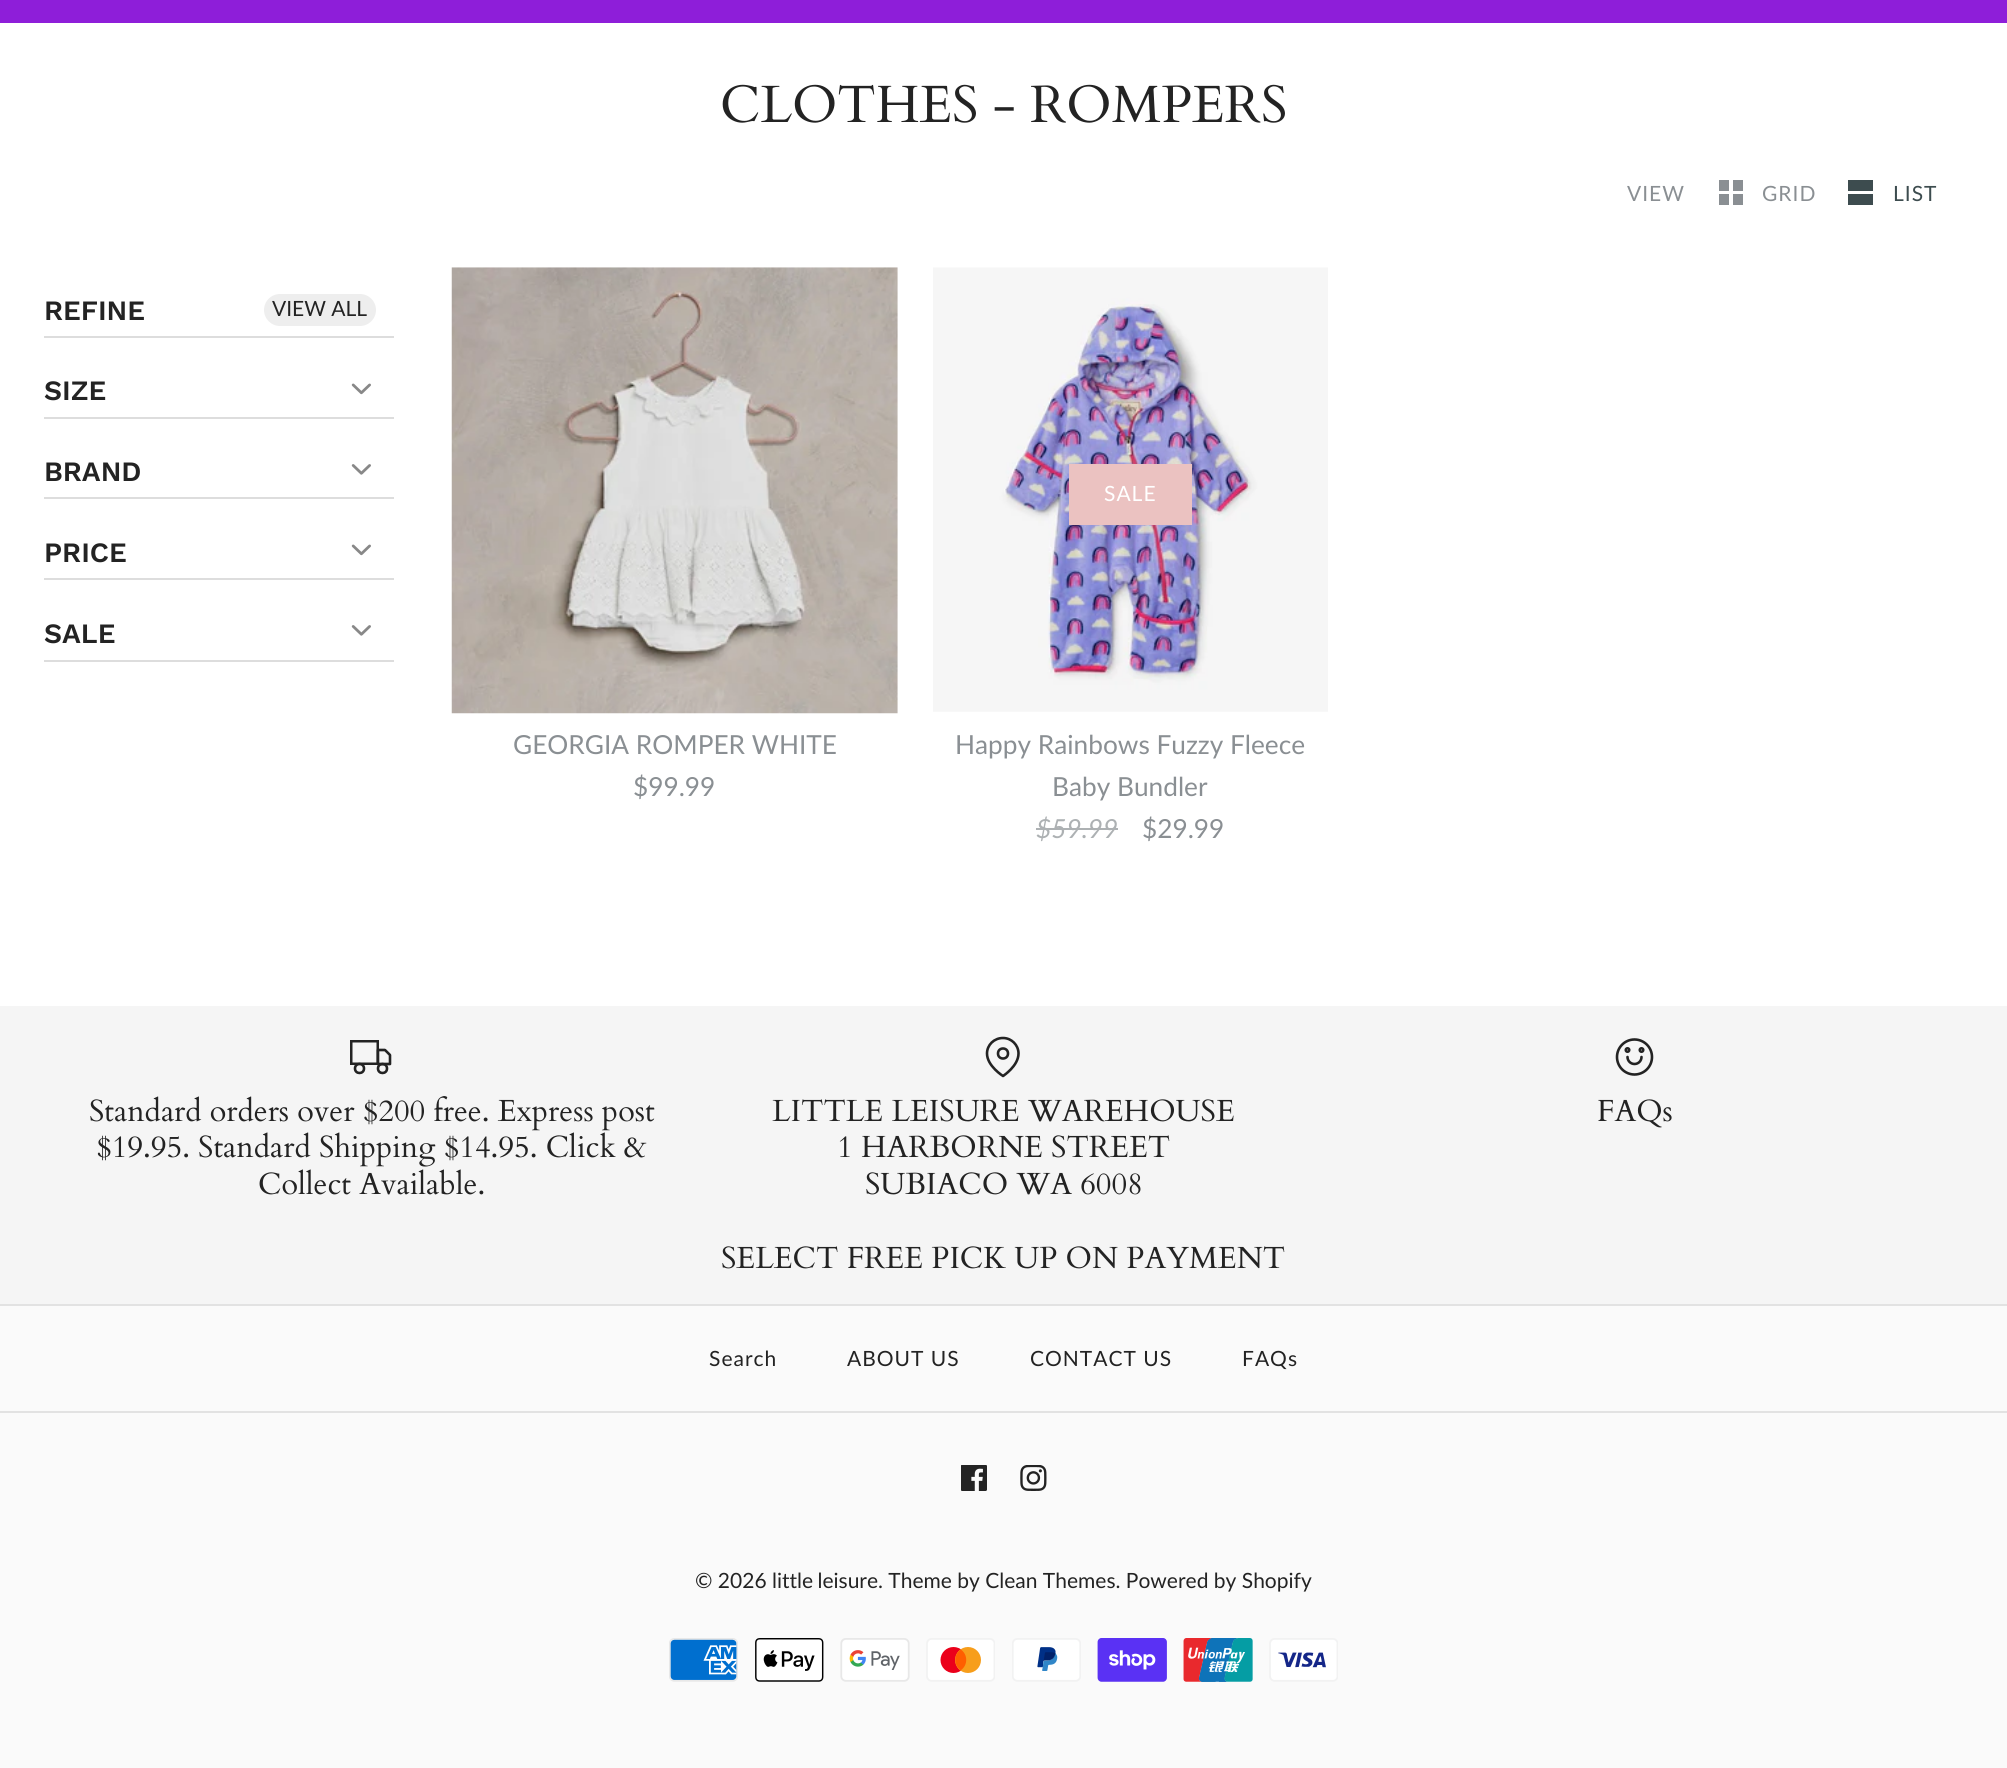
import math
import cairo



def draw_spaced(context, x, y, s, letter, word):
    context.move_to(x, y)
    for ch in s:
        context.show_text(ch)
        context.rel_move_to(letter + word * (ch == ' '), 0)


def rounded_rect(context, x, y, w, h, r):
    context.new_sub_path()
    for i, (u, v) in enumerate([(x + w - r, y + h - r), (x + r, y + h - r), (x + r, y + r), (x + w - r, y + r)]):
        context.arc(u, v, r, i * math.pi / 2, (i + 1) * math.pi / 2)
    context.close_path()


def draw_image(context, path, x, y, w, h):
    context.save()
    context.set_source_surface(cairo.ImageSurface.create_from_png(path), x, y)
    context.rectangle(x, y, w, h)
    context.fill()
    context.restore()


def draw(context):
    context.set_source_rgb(1, 1, 1)
    context.paint()
    context.set_source_rgb(142 / 255, 30 / 255, 217 / 255)
    context.rectangle(0, 0, 2007, 23)
    context.fill()
    context.set_source_rgb(138 / 255, 143 / 255, 147 / 255)
    context.rectangle(1719, 180, 10, 11)
    context.fill()
    context.rectangle(1733, 180, 10, 11)
    context.fill()
    context.rectangle(1719, 194, 10, 11)
    context.fill()
    context.rectangle(1733, 194, 10, 11)
    context.fill()
    context.set_source_rgb(61 / 255, 76 / 255, 79 / 255)
    context.rectangle(1848, 180, 25, 11)
    context.fill()
    context.rectangle(1848, 194, 25, 11)
    context.fill()
    context.set_source_rgb(221 / 255, 221 / 255, 221 / 255)
    context.rectangle(44, 336, 350, 2)
    context.fill()
    context.set_source_rgb(238 / 255, 238 / 255, 238 / 255)
    rounded_rect(context, 264, 294, 112, 32, 16)
    context.fill()
    context.set_source_rgb(221 / 255, 221 / 255, 221 / 255)
    context.rectangle(44, 417, 350, 2)
    context.fill()
    draw_image(context, "images/1.png", 351, 383, 20, 12)
    context.rectangle(44, 497, 350, 2)
    context.fill()
    draw_image(context, "images/2.png", 351, 464, 20, 11)
    context.rectangle(44, 578, 350, 2)
    context.fill()
    draw_image(context, "images/1.png", 351, 544, 20, 12)
    context.rectangle(44, 660, 350, 2)
    context.fill()
    draw_image(context, "images/2.png", 351, 625, 20, 11)
    draw_image(context, "images/3.png", 451, 267, 447, 447)
    draw_image(context, "images/4.png", 933, 267, 395, 445)
    context.set_source_rgb(235 / 255, 194 / 255, 193 / 255)
    context.rectangle(1069, 464, 123, 61)
    context.fill()
    context.set_source_rgb(173 / 255, 177 / 255, 179 / 255)
    context.rectangle(1036, 828, 82, 2)
    context.fill()
    context.set_source_rgb(250 / 255, 250 / 255, 250 / 255)
    context.rectangle(0, 1306, 2007, 462)
    context.fill()
    context.set_source_rgb(245 / 255, 245 / 255, 245 / 255)
    context.rectangle(0, 1006, 2007, 298)
    context.fill()
    context.rectangle(351.25, 1041.25, 26.5, 22.5)
    context.set_source_rgb(35 / 255, 35 / 255, 35 / 255)
    context.set_line_width(2.5)
    context.stroke()
    context.new_path()
    context.move_to(378, 1050)
    context.line_to(385, 1050)
    context.line_to(390, 1055)
    context.line_to(390, 1064)
    context.line_to(378, 1064)
    context.close_path()
    context.set_line_width(2.6)
    context.set_line_cap(cairo.LineCap.ROUND)
    context.set_line_join(cairo.LineJoin.ROUND)
    context.stroke()
    context.arc(359.5, 1068.5, 4.5, 0, 2 * math.pi)
    context.set_line_cap(cairo.LineCap.BUTT)
    context.set_line_join(cairo.LineJoin.MITER)
    context.stroke()
    context.arc(382.5, 1068.5, 4.5, 0, 2 * math.pi)
    context.stroke()
    context.new_path()
    context.move_to(1018.5, 1053.5)
    context.curve_to(1018.5, 1066, 1003, 1076, 1003, 1076)
    context.curve_to(1003, 1076, 987, 1066, 987, 1053.5)
    context.curve_to(987, 1045, 994, 1038, 1003, 1038)
    context.curve_to(1011.5, 1038, 1018.5, 1045, 1018.5, 1053.5)
    context.close_path()
    context.set_line_cap(cairo.LineCap.ROUND)
    context.set_line_join(cairo.LineJoin.ROUND)
    context.stroke()
    context.arc(1003, 1053.5, 5, 0, 2 * math.pi)
    context.set_line_cap(cairo.LineCap.BUTT)
    context.set_line_join(cairo.LineJoin.MITER)
    context.stroke()
    draw_image(context, "images/5.png", 1615, 1038, 39, 38)
    context.set_source_rgb(226 / 255, 226 / 255, 226 / 255)
    context.rectangle(0, 1304, 2007, 2)
    context.fill()
    context.rectangle(0, 1411, 2007, 2)
    context.fill()
    draw_image(context, "images/6.png", 961, 1465, 26, 26)
    draw_image(context, "images/7.png", 1020, 1465, 27, 26)
    draw_image(context, "images/8.png", 669, 1638, 69, 44)
    draw_image(context, "images/9.png", 755, 1638, 69, 44)
    draw_image(context, "images/10.png", 840, 1638, 70, 44)
    draw_image(context, "images/11.png", 926, 1638, 69, 44)
    draw_image(context, "images/12.png", 1012, 1638, 69, 44)
    draw_image(context, "images/13.png", 1097, 1638, 70, 44)
    draw_image(context, "images/14.png", 1183, 1638, 70, 44)
    draw_image(context, "images/15.png", 1269, 1638, 69, 44)
    context.select_font_face("Cardo")
    context.set_font_size(52.5)
    context.set_source_rgb(35 / 255, 35 / 255, 35 / 255)
    context.move_to(720, 122)
    context.show_text("CLOTHES - ROMPERS")
    context.select_font_face("Lato")
    context.set_font_size(21)
    context.set_source_rgb(138 / 255, 143 / 255, 147 / 255)
    draw_spaced(context, 1627, 201, "VIEW", 1, 0)
    draw_spaced(context, 1762, 201, "GRID", 1, 0)
    context.set_source_rgb(61 / 255, 76 / 255, 79 / 255)
    draw_spaced(context, 1893, 201, "LIST", 1, 0)
    context.select_font_face("Work Sans SemiBold")
    context.set_font_size(28)
    context.set_source_rgb(35 / 255, 35 / 255, 35 / 255)
    context.move_to(44, 320)
    context.show_text("REFINE")
    context.select_font_face("Lato")
    context.set_font_size(21)
    context.move_to(272, 316)
    context.show_text("VIEW ALL")
    context.select_font_face("Work Sans SemiBold")
    context.set_font_size(28)
    context.move_to(44, 400)
    context.show_text("SIZE")
    context.move_to(44, 481)
    context.show_text("BRAND")
    context.move_to(44, 562)
    context.show_text("PRICE")
    context.move_to(44, 643)
    context.show_text("SALE")
    context.select_font_face("Lato")
    context.set_font_size(26.25)
    context.set_source_rgb(138 / 255, 143 / 255, 147 / 255)
    context.move_to(513, 754)
    context.show_text("GEORGIA ROMPER WHITE")
    context.move_to(633, 796)
    context.show_text("$99.99")
    context.set_font_size(21)
    context.set_source_rgb(1, 1, 1)
    draw_spaced(context, 1104, 501, "SALE", 1, 0)
    context.set_font_size(26.25)
    context.set_source_rgb(138 / 255, 143 / 255, 147 / 255)
    context.move_to(955, 754)
    context.show_text("Happy Rainbows Fuzzy Fleece")
    context.move_to(1052, 796)
    context.show_text("Baby Bundler")
    context.select_font_face("Lato", cairo.FontSlant.ITALIC)
    context.set_source_rgb(173 / 255, 177 / 255, 179 / 255)
    context.move_to(1036, 838)
    context.show_text("$59.99")
    context.select_font_face("Lato")
    context.set_source_rgb(138 / 255, 143 / 255, 147 / 255)
    context.move_to(1142, 838)
    context.show_text("$29.99")
    context.select_font_face("Cardo")
    context.set_font_size(30.6)
    context.set_source_rgb(35 / 255, 35 / 255, 35 / 255)
    context.move_to(89, 1121)
    context.show_text("Standard orders over $200 free. Express post")
    context.move_to(96, 1157)
    context.show_text("$19.95. Standard Shipping $14.95. Click &")
    context.move_to(258, 1194)
    context.show_text("Collect Available.")
    context.move_to(772, 1121)
    context.show_text("LITTLE LEISURE WAREHOUSE")
    context.move_to(837, 1157)
    context.show_text("1 HARBORNE STREET")
    context.move_to(865, 1194)
    context.show_text("SUBIACO WA 6008")
    context.move_to(721, 1268)
    context.show_text("SELECT FREE PICK UP ON PAYMENT")
    context.move_to(1597, 1121)
    context.show_text("FAQs")
    context.select_font_face("Lato")
    context.set_font_size(21)
    draw_spaced(context, 709, 1366, "Search", 1, 0)
    draw_spaced(context, 847, 1366, "ABOUT US", 1, 0)
    draw_spaced(context, 1030, 1366, "CONTACT US", 1, 0)
    draw_spaced(context, 1242, 1366, "FAQs", 1, 0)
    context.move_to(695, 1588)
    context.show_text("© 2026")
    draw_spaced(context, 772, 1588, "little leisure", 0, -1)
    context.move_to(878, 1588)
    context.show_text(". Theme by Clean Themes. Powered by Shopify")


surface = cairo.ImageSurface(cairo.Format.RGB24, 2007, 1768)
context = cairo.Context(surface)
options = cairo.FontOptions()
options.set_hint_metrics(cairo.HintMetrics.OFF)
options.set_hint_style(cairo.HintStyle.NONE)
context.set_font_options(options)
context.set_miter_limit(4)
draw(context)
surface.write_to_png("out.png")
